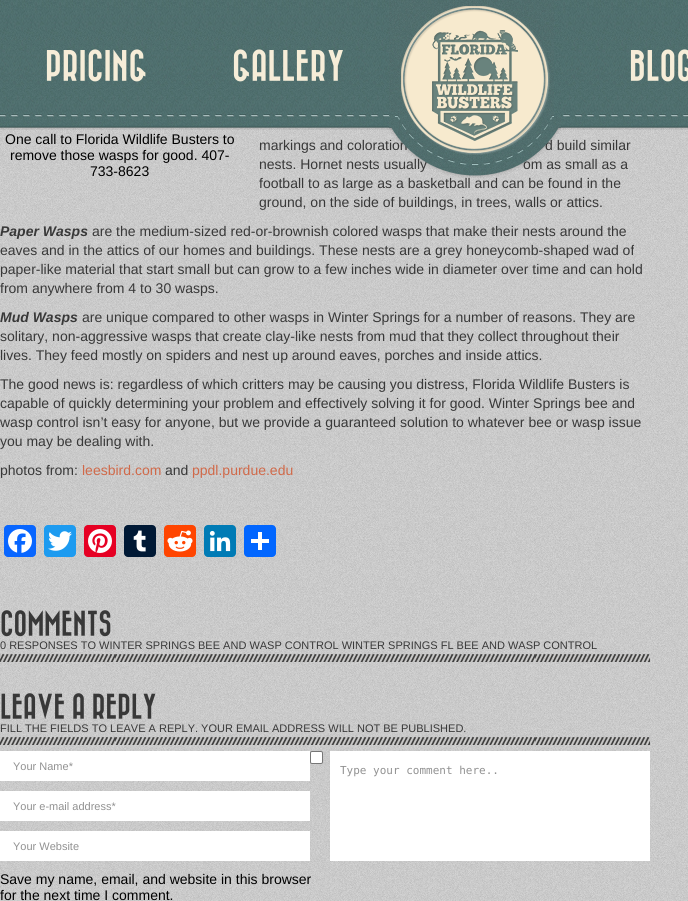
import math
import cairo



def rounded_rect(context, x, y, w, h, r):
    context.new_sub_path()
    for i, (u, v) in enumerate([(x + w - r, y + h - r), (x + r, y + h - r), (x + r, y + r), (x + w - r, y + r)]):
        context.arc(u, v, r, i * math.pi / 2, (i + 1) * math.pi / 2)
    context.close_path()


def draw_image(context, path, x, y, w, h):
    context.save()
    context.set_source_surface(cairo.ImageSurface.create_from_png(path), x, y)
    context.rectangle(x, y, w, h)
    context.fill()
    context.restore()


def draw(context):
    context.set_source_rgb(1, 1, 1)
    context.paint()
    draw_image(context, "images/1.png", 0, 126, 688, 775)
    draw_image(context, "images/2.png", 0, 0, 688, 130)
    context.set_source_rgb(8 / 255, 102 / 255, 1)
    rounded_rect(context, 4, 525, 32, 32, 4)
    context.fill()
    draw_image(context, "images/4.png", 8, 529, 24, 24)
    context.set_source_rgb(29 / 255, 155 / 255, 240 / 255)
    rounded_rect(context, 44, 525, 32, 32, 4)
    context.fill()
    draw_image(context, "images/5.png", 48, 531, 24, 20)
    context.set_source_rgb(230 / 255, 0, 35 / 255)
    rounded_rect(context, 84, 525, 32, 32, 4)
    context.fill()
    draw_image(context, "images/6.png", 88, 529, 24, 24)
    context.set_source_rgb(0, 25 / 255, 53 / 255)
    rounded_rect(context, 124, 525, 32, 32, 4)
    context.fill()
    draw_image(context, "images/7.png", 133, 530, 13, 22)
    context.set_source_rgb(1, 69 / 255, 0)
    rounded_rect(context, 164, 525, 32, 32, 4)
    context.fill()
    draw_image(context, "images/8.png", 167, 530, 26, 22)
    context.set_source_rgb(0, 123 / 255, 181 / 255)
    rounded_rect(context, 204, 525, 32, 32, 4)
    context.fill()
    draw_image(context, "images/9.png", 209, 530, 22, 22)
    context.set_source_rgb(1 / 255, 102 / 255, 1)
    rounded_rect(context, 244, 525, 32, 32, 4)
    context.fill()
    context.set_source_rgb(1, 1, 1)
    context.rectangle(258, 532, 4, 18)
    context.fill()
    context.rectangle(251, 539, 18, 4)
    context.fill()
    draw_image(context, "images/10.png", 0, 654, 650, 8)
    draw_image(context, "images/11.png", 0, 737, 650, 8)
    context.rectangle(0, 751, 310, 30)
    context.fill()
    context.rectangle(0, 791, 310, 30)
    context.fill()
    context.rectangle(0, 831, 310, 30)
    context.fill()
    context.rectangle(330, 751, 320, 110)
    context.fill()
    rounded_rect(context, 310.5, 751.5, 12, 12, 1.5)
    context.fill_preserve()
    context.set_source_rgb(118 / 255, 118 / 255, 118 / 255)
    context.set_line_width(1)
    context.stroke()
    context.select_font_face("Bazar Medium")
    context.set_font_size(32)
    context.set_source_rgb(246 / 255, 237 / 255, 216 / 255)
    context.move_to(45, 75)
    context.show_text("PRICING")
    context.move_to(232, 75)
    context.show_text("GALLERY")
    context.move_to(629, 75)
    context.show_text("BLOG")
    context.select_font_face("Liberation Sans")
    context.set_font_size(14)
    context.set_source_rgb(0, 0, 0)
    context.move_to(5, 144)
    context.show_text("One call to Florida Wildlife Busters to")
    context.move_to(10, 160)
    context.show_text("remove those wasps for good. 407-")
    context.move_to(90, 176)
    context.show_text("733-8623")
    context.set_source_rgb(56 / 255, 56 / 255, 56 / 255)
    context.move_to(259, 150)
    context.show_text("markings and coloration")
    context.move_to(545, 150)
    context.show_text("d build similar")
    context.move_to(259, 169)
    context.show_text("nests. Hornet nests usually")
    context.move_to(523, 169)
    context.show_text("om as small as a")
    context.move_to(259, 188)
    context.show_text("football to as large as a basketball and can be found in the")
    draw_image(context, "images/3.png", 389, 0, 172, 178)
    context.move_to(259, 207)
    context.show_text("ground, on the side of buildings, in trees, walls or attics.")
    context.select_font_face("Liberation Sans", cairo.FontSlant.ITALIC, cairo.FontWeight.BOLD)
    context.move_to(0, 236)
    context.show_text("Paper Wasps")
    context.select_font_face("Liberation Sans")
    context.move_to(92, 236)
    context.show_text("are the medium-sized red-or-brownish colored wasps that make their nests around the")
    context.move_to(0, 255)
    context.show_text("eaves and in the attics of our homes and buildings. These nests are a grey honeycomb-shaped wad of")
    context.move_to(0, 274)
    context.show_text("paper-like material that start small but can grow to a few inches wide in diameter over time and can hold")
    context.move_to(0, 293)
    context.show_text("from anywhere from 4 to 30 wasps.")
    context.select_font_face("Liberation Sans", cairo.FontSlant.ITALIC, cairo.FontWeight.BOLD)
    context.move_to(0, 322)
    context.show_text("Mud Wasps")
    context.select_font_face("Liberation Sans")
    context.move_to(82, 322)
    context.show_text("are unique compared to other wasps in Winter Springs for a number of reasons. They are")
    context.move_to(0, 341)
    context.show_text("solitary, non-aggressive wasps that create clay-like nests from mud that they collect throughout their")
    context.move_to(0, 360)
    context.show_text("lives. They feed mostly on spiders and nest up around eaves, porches and inside attics.")
    context.move_to(0, 389)
    context.show_text("The good news is: regardless of which critters may be causing you distress, Florida Wildlife Busters is")
    context.move_to(0, 408)
    context.show_text("capable of quickly determining your problem and effectively solving it for good. Winter Springs bee and")
    context.move_to(0, 427)
    context.show_text("wasp control isn’t easy for anyone, but we provide a guaranteed solution to whatever bee or wasp issue")
    context.move_to(0, 446)
    context.show_text("you may be dealing with.")
    context.move_to(0, 475)
    context.show_text("photos from:")
    context.set_source_rgb(208 / 255, 105 / 255, 73 / 255)
    context.move_to(82, 475)
    context.show_text("leesbird.com")
    context.set_source_rgb(56 / 255, 56 / 255, 56 / 255)
    context.move_to(165, 475)
    context.show_text("and")
    context.set_source_rgb(208 / 255, 105 / 255, 73 / 255)
    context.move_to(192, 475)
    context.show_text("ppdl.purdue.edu")
    context.select_font_face("Bazar Medium")
    context.set_font_size(26)
    context.set_source_rgb(56 / 255, 56 / 255, 56 / 255)
    context.move_to(0, 631)
    context.show_text("COMMENTS")
    context.select_font_face("Liberation Sans")
    context.set_font_size(11)
    context.move_to(0, 649)
    context.show_text("0 RESPONSES TO WINTER SPRINGS BEE AND WASP CONTROL WINTER SPRINGS FL BEE AND WASP CONTROL")
    context.select_font_face("Bazar Medium")
    context.set_font_size(26)
    context.move_to(0, 714)
    context.show_text("LEAVE A REPLY")
    context.select_font_face("Liberation Sans")
    context.set_font_size(11)
    context.move_to(0, 732)
    context.show_text("FILL THE FIELDS TO LEAVE A REPLY. YOUR EMAIL ADDRESS WILL NOT BE PUBLISHED.")
    context.set_source_rgb(145 / 255, 145 / 255, 145 / 255)
    context.move_to(13, 770)
    context.show_text("Your Name*")
    context.move_to(13, 810)
    context.show_text("Your e-mail address*")
    context.move_to(13, 850)
    context.show_text("Your Website")
    context.select_font_face("DejaVu Sans Mono")
    context.move_to(340, 774)
    context.show_text("Type your comment here..")
    context.select_font_face("Liberation Sans")
    context.set_font_size(14)
    context.set_source_rgb(0, 0, 0)
    context.move_to(0, 884)
    context.show_text("Save my name, email, and website in this browser")
    context.move_to(0, 900)
    context.show_text("for the next time I comment.")


surface = cairo.ImageSurface(cairo.Format.RGB24, 688, 901)
context = cairo.Context(surface)
options = cairo.FontOptions()
options.set_hint_metrics(cairo.HintMetrics.OFF)
options.set_hint_style(cairo.HintStyle.NONE)
context.set_font_options(options)
context.set_miter_limit(4)
draw(context)
surface.write_to_png("out.png")
